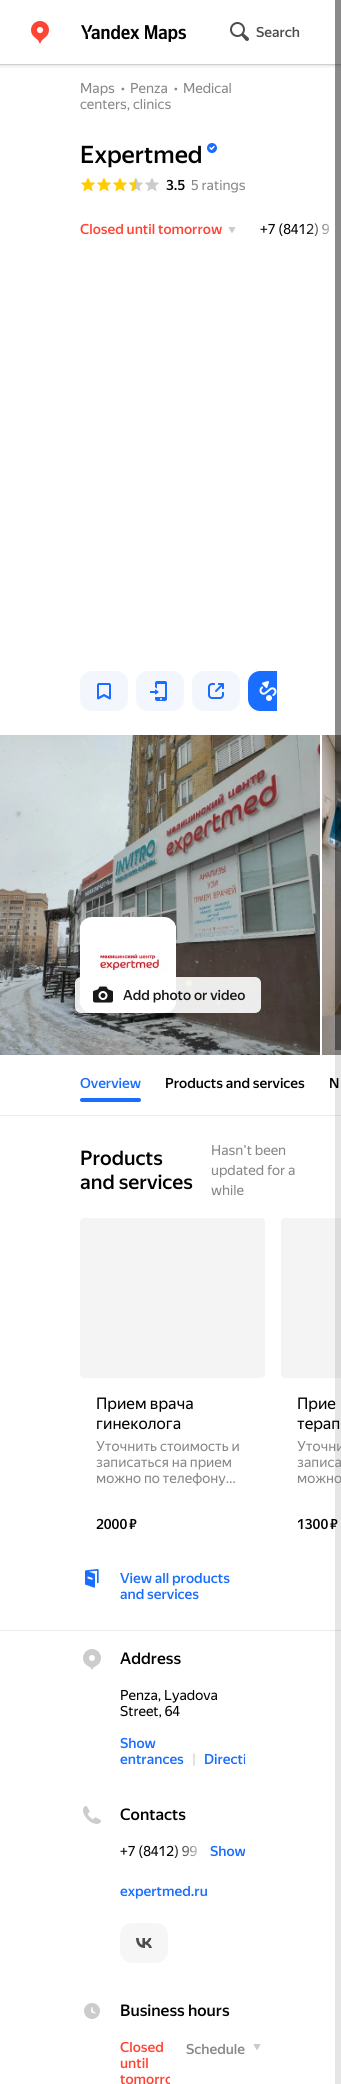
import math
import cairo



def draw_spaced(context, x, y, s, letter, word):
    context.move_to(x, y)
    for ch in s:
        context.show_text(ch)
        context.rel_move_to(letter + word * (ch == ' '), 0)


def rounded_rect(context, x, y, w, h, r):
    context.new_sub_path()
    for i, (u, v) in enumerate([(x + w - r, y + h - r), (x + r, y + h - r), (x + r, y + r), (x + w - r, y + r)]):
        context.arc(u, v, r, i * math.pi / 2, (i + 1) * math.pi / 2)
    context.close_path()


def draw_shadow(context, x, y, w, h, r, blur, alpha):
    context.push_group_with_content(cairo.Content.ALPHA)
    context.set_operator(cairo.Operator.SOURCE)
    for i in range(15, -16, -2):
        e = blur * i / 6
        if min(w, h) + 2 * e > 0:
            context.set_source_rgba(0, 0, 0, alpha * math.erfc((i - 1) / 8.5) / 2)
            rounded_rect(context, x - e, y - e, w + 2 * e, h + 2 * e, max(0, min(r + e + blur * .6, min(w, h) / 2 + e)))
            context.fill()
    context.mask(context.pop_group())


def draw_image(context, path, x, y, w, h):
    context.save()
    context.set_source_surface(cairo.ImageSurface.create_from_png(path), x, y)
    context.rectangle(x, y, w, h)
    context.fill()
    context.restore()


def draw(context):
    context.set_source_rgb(1, 1, 1)
    context.paint()
    context.set_source_rgb(235 / 255, 235 / 255, 235 / 255)
    context.rectangle(0, 64, 341, 1)
    context.fill()
    context.set_source_rgb(0, 0, 0)
    draw_shadow(context, 0, 61, 341, 4, 0, 2, 0.2)
    context.set_source_rgb(1, 1, 1)
    context.rectangle(0, 58, 341, 6)
    context.fill()
    draw_image(context, "images/14.png", 322, 735, 19, 320)
    context.set_source_rgb(235 / 255, 235 / 255, 235 / 255)
    context.rectangle(0, 1115, 341, 1)
    context.fill()
    context.set_source_rgb(244 / 255, 244 / 255, 244 / 255)
    context.new_path()
    context.move_to(285, 1218)
    context.line_to(341, 1218)
    context.line_to(341, 1378)
    context.line_to(285, 1378)
    context.curve_to(283, 1378, 281, 1376, 281, 1374)
    context.line_to(281, 1222)
    context.curve_to(281, 1220, 283, 1218, 285, 1218)
    context.close_path()
    context.fill()
    context.set_source_rgb(235 / 255, 235 / 255, 235 / 255)
    context.rectangle(0, 1630, 341, 1)
    context.fill()
    context.set_source_rgba(0, 0, 0, 0.1)
    context.rectangle(335, 0, 6, 2084)
    context.fill()
    context.set_source_rgba(0, 0, 0, 0.4)
    context.rectangle(335, 0, 6, 1050)
    context.fill()
    draw_image(context, "images/1.png", 31, 21, 18, 23)
    draw_image(context, "images/2.png", 81, 25, 105, 17)
    draw_image(context, "images/3.png", 230, 22, 19, 19)
    draw_image(context, "images/4.png", 207, 143, 10, 10)
    draw_image(context, "images/5.png", 81, 178, 14, 13)
    draw_image(context, "images/5.png", 97, 178, 14, 13)
    draw_image(context, "images/5.png", 113, 178, 14, 13)
    draw_image(context, "images/6.png", 129, 178, 14, 13)
    draw_image(context, "images/7.png", 145, 178, 14, 13)
    draw_image(context, "images/8.png", 228, 227, 8, 6)
    context.set_source_rgb(243 / 255, 246 / 255, 252 / 255)
    rounded_rect(context, 80, 671, 48, 40, 12)
    context.fill()
    draw_image(context, "images/9.png", 97, 683, 14, 17)
    rounded_rect(context, 136, 671, 48, 40, 12)
    context.fill()
    draw_image(context, "images/10.png", 150, 681, 17, 20)
    rounded_rect(context, 192, 671, 48, 40, 12)
    context.fill()
    draw_image(context, "images/11.png", 208, 683, 16, 16)
    context.set_source_rgb(25 / 255, 109 / 255, 1)
    context.new_path()
    context.move_to(260, 671)
    context.line_to(277, 671)
    context.line_to(277, 711)
    context.line_to(260, 711)
    context.curve_to(253.5, 711, 248, 705.5, 248, 699)
    context.line_to(248, 683)
    context.curve_to(248, 676.5, 253.5, 671, 260, 671)
    context.close_path()
    context.fill()
    draw_image(context, "images/12.png", 259, 681, 18, 20)
    draw_image(context, "images/13.png", 0, 735, 320, 320)
    context.set_source_rgb(1, 1, 1)
    rounded_rect(context, 80, 917, 96, 96, 12)
    context.fill()
    draw_image(context, "images/15.png", 80, 921, 96, 88)
    context.set_source_rgba(1, 1, 1, 0.9)
    rounded_rect(context, 75, 977, 186, 36, 6)
    context.fill()
    draw_image(context, "images/16.png", 93, 986, 20, 17)
    context.set_source_rgb(25 / 255, 109 / 255, 1)
    rounded_rect(context, 80, 1098, 61, 4, 2)
    context.fill()
    context.set_source_rgb(244 / 255, 244 / 255, 244 / 255)
    rounded_rect(context, 80, 1218, 185, 160, 4)
    context.fill()
    draw_image(context, "images/17.png", 85, 1569, 14, 19)
    draw_image(context, "images/18.png", 83, 1649, 18, 21)
    draw_image(context, "images/19.png", 83, 1806, 18, 18)
    context.set_source_rgb(246 / 255, 246 / 255, 246 / 255)
    rounded_rect(context, 120, 1923, 48, 40, 12)
    context.fill()
    draw_image(context, "images/20.png", 136, 1938, 16, 10)
    draw_image(context, "images/21.png", 84, 2003, 16, 16)
    draw_image(context, "images/8.png", 253, 2044, 8, 6)
    context.select_font_face("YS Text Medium")
    context.set_font_size(14)
    context.set_source_rgb(77 / 255, 77 / 255, 77 / 255)
    context.move_to(256, 37)
    context.show_text("Search")
    context.select_font_face("YS Text")
    context.set_source_rgb(135 / 255, 135 / 255, 135 / 255)
    context.move_to(80, 93)
    context.show_text("Maps")
    context.move_to(121, 93)
    context.show_text("•")
    context.move_to(130, 93)
    context.show_text("Penza")
    context.move_to(174, 93)
    context.show_text("•")
    context.move_to(183, 93)
    context.show_text("Medical")
    context.move_to(80, 109)
    context.show_text("centers, clinics")
    context.select_font_face("YS Text Medium")
    context.set_font_size(24)
    context.set_source_rgb(0, 0, 0)
    context.move_to(80, 163)
    context.show_text("Expertmed")
    context.set_font_size(14)
    context.move_to(166, 190)
    context.show_text("3.5")
    context.select_font_face("YS Text")
    context.set_source_rgb(135 / 255, 135 / 255, 135 / 255)
    context.move_to(191, 190)
    context.show_text("5 ratings")
    context.select_font_face("YS Text Medium")
    context.set_source_rgb(1, 68 / 255, 51 / 255)
    context.move_to(80, 234)
    context.show_text("Closed until tomorrow")
    context.select_font_face("YS Text")
    context.set_source_rgb(0, 0, 0)
    context.move_to(260, 234)
    context.show_text("+7 (8412) 9")
    gradient = cairo.LinearGradient(306, 229, 338, 229)
    gradient.add_color_stop_rgba(0, 1, 1, 1, 0)
    gradient.add_color_stop_rgba(1, 1, 1, 1, 1)
    context.set_source(gradient)
    context.rectangle(307, 223, 23, 13)
    context.fill()
    context.select_font_face("YS Text Medium")
    context.set_source_rgb(25 / 255, 24 / 255, 24 / 255)
    context.move_to(123, 1000)
    context.show_text("Add photo or video")
    context.set_source_rgb(25 / 255, 109 / 255, 1)
    context.move_to(80, 1088)
    context.show_text("Overview")
    context.set_source_rgb(0, 0, 0)
    context.move_to(165, 1088)
    context.show_text("Products and services")
    context.move_to(329, 1088)
    context.show_text("N")
    context.set_font_size(20)
    context.move_to(80, 1165)
    context.show_text("Products")
    context.move_to(80, 1189)
    context.show_text("and services")
    context.select_font_face("YS Text")
    context.set_font_size(14)
    context.set_source_rgb(135 / 255, 135 / 255, 135 / 255)
    context.move_to(211, 1155)
    context.show_text("Hasn't been")
    context.move_to(211, 1175)
    context.show_text("updated for a")
    context.move_to(211, 1195)
    context.show_text("while")
    context.set_font_size(16)
    context.set_source_rgb(0, 0, 0)
    context.move_to(96, 1409)
    context.show_text("Прием врача")
    context.move_to(96, 1429)
    context.show_text("гинеколога")
    context.set_font_size(14)
    context.set_source_rgb(135 / 255, 135 / 255, 135 / 255)
    context.move_to(96, 1451)
    context.show_text("Уточнить стоимость и")
    context.move_to(96, 1467)
    context.show_text("записаться на прием")
    context.move_to(96, 1483)
    context.show_text("можно по телефону…")
    context.select_font_face("YS Text Medium")
    context.set_source_rgb(0, 0, 0)
    draw_spaced(context, 96, 1529, "2000 ₽", 0, -1)
    context.select_font_face("YS Text")
    context.set_font_size(16)
    context.move_to(297, 1409)
    context.show_text("Прие")
    context.move_to(297, 1429)
    context.show_text("терап")
    context.set_font_size(14)
    context.set_source_rgb(135 / 255, 135 / 255, 135 / 255)
    context.move_to(297, 1451)
    context.show_text("Уточни")
    context.move_to(297, 1467)
    context.show_text("записа")
    context.move_to(297, 1483)
    context.show_text("можно")
    context.select_font_face("YS Text Medium")
    context.set_source_rgb(0, 0, 0)
    draw_spaced(context, 297, 1529, "1300 ₽", 0, -1)
    context.set_source_rgb(25 / 255, 109 / 255, 1)
    context.move_to(120, 1583)
    context.show_text("View all products")
    context.move_to(120, 1599)
    context.show_text("and services")
    context.set_font_size(16)
    context.set_source_rgb(0, 0, 0)
    context.move_to(120, 1664)
    context.show_text("Address")
    context.select_font_face("YS Text")
    context.set_font_size(14)
    context.move_to(120, 1700)
    context.show_text("Penza, Lyadova")
    context.move_to(120, 1716)
    context.show_text("Street, 64")
    context.select_font_face("YS Text Medium")
    context.set_source_rgb(25 / 255, 109 / 255, 1)
    context.move_to(120, 1748)
    context.show_text("Show")
    context.move_to(120, 1764)
    context.show_text("entrances")
    context.select_font_face("YS Text")
    context.set_source_rgb(204 / 255, 204 / 255, 204 / 255)
    context.move_to(192, 1764)
    context.show_text("|")
    context.save()
    context.rectangle(120, 1675, 125, 104)
    context.clip()
    context.select_font_face("YS Text Medium")
    context.set_source_rgb(25 / 255, 109 / 255, 1)
    context.move_to(204, 1764)
    context.show_text("Directi")
    context.restore()
    context.select_font_face("YS Text Medium")
    context.set_font_size(16)
    context.set_source_rgb(0, 0, 0)
    context.move_to(120, 1820)
    context.show_text("Contacts")
    context.select_font_face("YS Text")
    context.set_font_size(14)
    context.move_to(120, 1856)
    context.show_text("+7 (8412) 99")
    gradient = cairo.LinearGradient(173, 1851, 205, 1851)
    gradient.add_color_stop_rgba(0, 1, 1, 1, 0)
    gradient.add_color_stop_rgba(1, 1, 1, 1, 1)
    context.set_source(gradient)
    context.rectangle(174, 1845, 23, 13)
    context.fill()
    context.save()
    context.rectangle(120, 1831, 125, 40)
    context.clip()
    context.select_font_face("YS Text Medium")
    context.set_source_rgb(25 / 255, 109 / 255, 1)
    context.move_to(210, 1856)
    context.show_text("Show")
    context.restore()
    context.select_font_face("YS Text Medium")
    context.set_source_rgb(25 / 255, 109 / 255, 1)
    context.move_to(120, 1896)
    context.show_text("expertmed.ru")
    context.set_font_size(16)
    context.set_source_rgb(0, 0, 0)
    context.move_to(120, 2016)
    context.show_text("Business hours")
    context.set_font_size(14)
    context.set_source_rgb(1, 68 / 255, 51 / 255)
    context.move_to(120, 2052)
    context.show_text("Closed")
    context.move_to(120, 2068)
    context.show_text("until")
    context.save()
    context.rectangle(120, 2027, 50, 57)
    context.clip()
    context.move_to(120, 2084)
    context.show_text("tomorro")
    context.restore()
    context.set_source_rgb(135 / 255, 135 / 255, 135 / 255)
    context.move_to(186, 2054)
    context.show_text("Schedule")


surface = cairo.ImageSurface(cairo.Format.RGB24, 341, 2084)
context = cairo.Context(surface)
options = cairo.FontOptions()
options.set_hint_metrics(cairo.HintMetrics.OFF)
options.set_hint_style(cairo.HintStyle.NONE)
context.set_font_options(options)
context.set_miter_limit(4)
draw(context)
surface.write_to_png("out.png")
